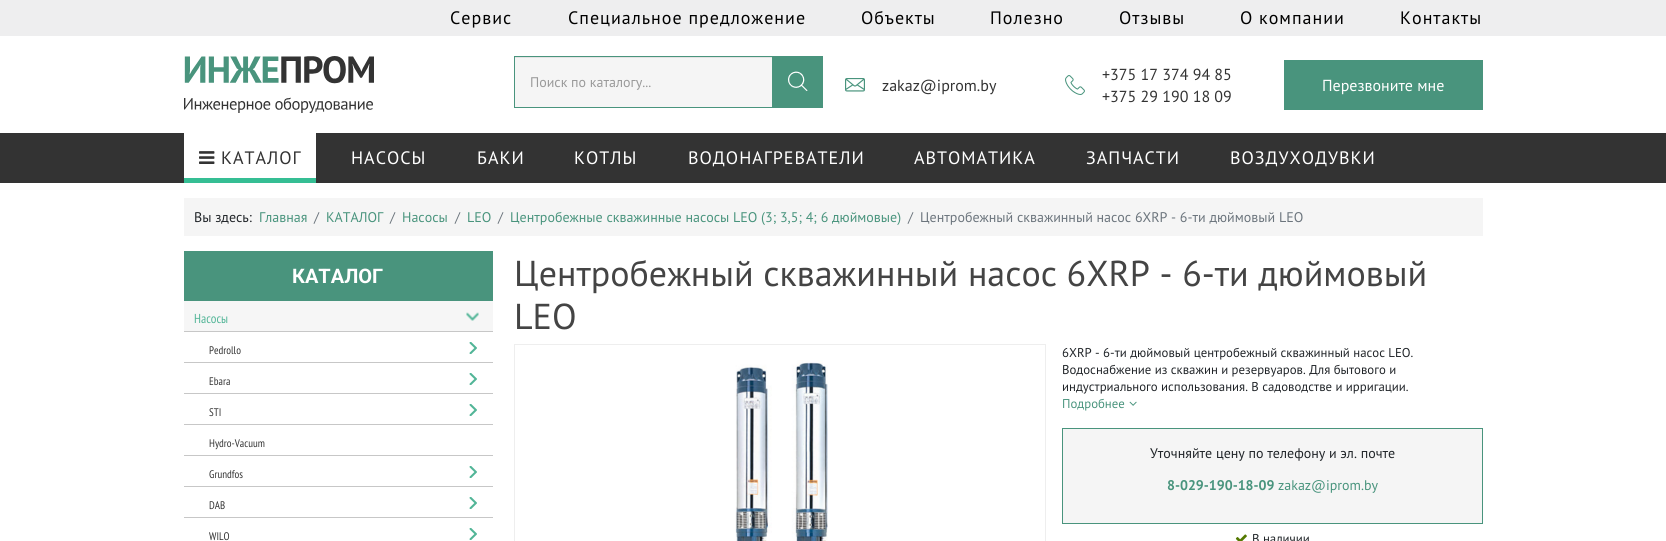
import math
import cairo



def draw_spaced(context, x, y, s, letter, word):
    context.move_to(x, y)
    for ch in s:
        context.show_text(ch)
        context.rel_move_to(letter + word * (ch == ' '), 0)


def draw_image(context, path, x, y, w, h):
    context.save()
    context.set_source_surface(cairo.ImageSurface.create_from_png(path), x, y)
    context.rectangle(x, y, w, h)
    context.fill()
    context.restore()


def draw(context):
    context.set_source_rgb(1, 1, 1)
    context.paint()
    context.set_source_rgb(238 / 255, 238 / 255, 239 / 255)
    context.rectangle(0, 0, 1666, 36)
    context.fill()
    draw_image(context, "images/1.png", 184, 56, 190, 57)
    context.set_source_rgb(245 / 255, 245 / 255, 245 / 255)
    context.rectangle(515, 58, 257, 49)
    context.fill()
    context.set_source_rgb(227 / 255, 227 / 255, 227 / 255)
    context.rectangle(515, 57, 257, 1)
    context.fill()
    context.rectangle(514.5, 56.5, 308, 51)
    context.set_source_rgb(73 / 255, 148 / 255, 125 / 255)
    context.set_line_width(1)
    context.stroke()
    context.rectangle(772, 57, 50, 50)
    context.fill()
    draw_image(context, "images/2.png", 788, 71, 20, 20)
    draw_image(context, "images/3.png", 845, 78, 20, 14)
    draw_image(context, "images/4.png", 1065, 75, 20, 20)
    context.rectangle(1284, 60, 199, 50)
    context.fill()
    context.set_source_rgb(51 / 255, 51 / 255, 51 / 255)
    context.rectangle(0, 133, 1666, 50)
    context.fill()
    context.set_source_rgb(1, 1, 1)
    context.rectangle(184, 133, 132, 45)
    context.fill()
    draw_image(context, "images/5.png", 199, 151, 16, 13)
    context.set_source_rgb(53 / 255, 190 / 255, 148 / 255)
    context.rectangle(184, 178, 132, 5)
    context.fill()
    context.set_source_rgb(245 / 255, 245 / 255, 245 / 255)
    context.rectangle(184, 198, 1299, 38)
    context.fill()
    context.set_source_rgb(73 / 255, 148 / 255, 125 / 255)
    context.rectangle(184, 251, 309, 50)
    context.fill()
    context.set_source_rgb(246 / 255, 246 / 255, 246 / 255)
    context.rectangle(184, 301, 309, 30)
    context.fill()
    context.set_source_rgb(199 / 255, 199 / 255, 199 / 255)
    context.rectangle(184, 331, 309, 1)
    context.fill()
    draw_image(context, "images/6.png", 466, 312, 13, 9)
    context.rectangle(184, 362, 309, 1)
    context.fill()
    draw_image(context, "images/7.png", 469, 342, 8, 12)
    context.rectangle(184, 393, 309, 1)
    context.fill()
    draw_image(context, "images/7.png", 469, 373, 8, 12)
    context.rectangle(184, 424, 309, 1)
    context.fill()
    draw_image(context, "images/7.png", 469, 404, 8, 12)
    context.rectangle(184, 455, 309, 1)
    context.fill()
    context.rectangle(184, 486, 309, 1)
    context.fill()
    draw_image(context, "images/7.png", 469, 466, 8, 12)
    context.rectangle(184, 517, 309, 1)
    context.fill()
    draw_image(context, "images/7.png", 469, 497, 8, 12)
    draw_image(context, "images/7.png", 469, 528, 8, 12)
    context.rectangle(514.5, 344.5, 531, 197)
    context.set_source_rgb(238 / 255, 238 / 255, 238 / 255)
    context.stroke()
    draw_image(context, "images/8.png", 735, 360, 93, 181)
    draw_image(context, "images/9.png", 1129, 401, 8, 5)
    context.set_source_rgb(245 / 255, 245 / 255, 245 / 255)
    context.rectangle(1062.5, 428.5, 420, 95)
    context.fill_preserve()
    context.set_source_rgb(73 / 255, 148 / 255, 125 / 255)
    context.stroke()
    draw_image(context, "images/10.png", 1235, 534, 12, 7)
    context.select_font_face("PT Sans")
    context.set_font_size(18)
    context.set_source_rgb(0, 0, 0)
    draw_spaced(context, 450, 24, "Сервис", 1, 0)
    draw_spaced(context, 568, 24, "Специальное предложение", 1, 0)
    draw_spaced(context, 861, 24, "Объекты", 1, 0)
    draw_spaced(context, 990, 24, "Полезно", 1, 0)
    draw_spaced(context, 1119, 24, "Отзывы", 1, 0)
    draw_spaced(context, 1240, 24, "О компании", 1, 0)
    draw_spaced(context, 1400, 24, "Контакты", 1, 0)
    context.set_font_size(14)
    context.set_source_rgb(153 / 255, 153 / 255, 153 / 255)
    context.move_to(530, 87)
    context.show_text("Поиск по каталогу...")
    context.set_font_size(16)
    context.set_source_rgb(51 / 255, 51 / 255, 51 / 255)
    context.move_to(882, 91)
    context.show_text("zakaz@iprom.by")
    context.move_to(1102, 80)
    context.show_text("+375 17 374 94 85")
    context.move_to(1102, 102)
    context.show_text("+375 29 190 18 09")
    context.set_source_rgb(1, 1, 1)
    context.move_to(1322, 91)
    context.show_text("Перезвоните мне")
    context.set_font_size(18)
    context.set_source_rgb(51 / 255, 51 / 255, 51 / 255)
    draw_spaced(context, 221, 164, "КАТАЛОГ", 1, 0)
    context.set_source_rgb(1, 1, 1)
    draw_spaced(context, 351, 164, "НАСОСЫ", 1, 0)
    draw_spaced(context, 477, 164, "БАКИ", 1, 0)
    draw_spaced(context, 574, 164, "КОТЛЫ", 1, 0)
    draw_spaced(context, 688, 164, "ВОДОНАГРЕВАТЕЛИ", 1, 0)
    draw_spaced(context, 914, 164, "АВТОМАТИКА", 1, 0)
    draw_spaced(context, 1086, 164, "ЗАПЧАСТИ", 1, 0)
    draw_spaced(context, 1230, 164, "ВОЗДУХОДУВКИ", 1, 0)
    context.set_font_size(14)
    context.set_source_rgb(33 / 255, 37 / 255, 41 / 255)
    context.move_to(194, 222)
    context.show_text("Вы здесь:")
    context.set_source_rgb(73 / 255, 148 / 255, 125 / 255)
    context.move_to(259, 222)
    context.show_text("Главная")
    context.set_source_rgb(108 / 255, 117 / 255, 125 / 255)
    context.move_to(314, 222)
    context.show_text("/")
    context.set_source_rgb(73 / 255, 148 / 255, 125 / 255)
    context.move_to(326, 222)
    context.show_text("КАТАЛОГ")
    context.set_source_rgb(108 / 255, 117 / 255, 125 / 255)
    context.move_to(390, 222)
    context.show_text("/")
    context.set_source_rgb(73 / 255, 148 / 255, 125 / 255)
    context.move_to(402, 222)
    context.show_text("Насосы")
    context.set_source_rgb(108 / 255, 117 / 255, 125 / 255)
    context.move_to(455, 222)
    context.show_text("/")
    context.set_source_rgb(73 / 255, 148 / 255, 125 / 255)
    context.move_to(467, 222)
    context.show_text("LEO")
    context.set_source_rgb(108 / 255, 117 / 255, 125 / 255)
    context.move_to(498, 222)
    context.show_text("/")
    context.set_source_rgb(73 / 255, 148 / 255, 125 / 255)
    context.move_to(510, 222)
    context.show_text("Центробежные скважинные насосы LEO (3; 3,5; 4; 6 дюймовые)")
    context.set_source_rgb(108 / 255, 117 / 255, 125 / 255)
    context.move_to(908, 222)
    context.show_text("/")
    context.move_to(920, 222)
    context.show_text("Центробежный скважинный насос 6XRP - 6-ти дюймовый LEO")
    context.select_font_face("Roboto", cairo.FontSlant.NORMAL, cairo.FontWeight.BOLD)
    context.set_font_size(20)
    context.set_source_rgb(1, 1, 1)
    context.move_to(292, 283)
    context.show_text("КАТАЛОГ")
    context.select_font_face("PT Sans Narrow")
    context.set_font_size(13)
    context.set_source_rgb(82 / 255, 181 / 255, 151 / 255)
    context.move_to(194, 323)
    context.show_text("Насосы")
    context.set_font_size(11)
    context.set_source_rgb(51 / 255, 51 / 255, 51 / 255)
    context.move_to(209, 354)
    context.show_text("Pedrollo")
    context.move_to(209, 385)
    context.show_text("Ebara")
    context.move_to(209, 416)
    context.show_text("STI")
    context.move_to(209, 447)
    context.show_text("Hydro-Vacuum")
    context.move_to(209, 478)
    context.show_text("Grundfos")
    context.move_to(209, 509)
    context.show_text("DAB")
    context.move_to(209, 540)
    context.show_text("WILO")
    context.select_font_face("PT Sans")
    context.set_font_size(36)
    context.set_source_rgb(68 / 255, 68 / 255, 68 / 255)
    context.move_to(514, 286)
    context.show_text("Центробежный скважинный насос 6XRP - 6-ти дюймовый")
    context.move_to(514, 329)
    context.show_text("LEO")
    context.set_font_size(12.8)
    context.set_source_rgb(33 / 255, 37 / 255, 41 / 255)
    context.move_to(1062, 357)
    context.show_text("6XRP - 6-ти дюймовый центробежный скважинный насос LEO.")
    context.move_to(1062, 374)
    context.show_text("Водоснабжение из скважин и резервуаров. Для бытового и")
    context.move_to(1062, 391)
    context.show_text("индустриального использования. В садоводстве и ирригации.")
    context.set_source_rgb(73 / 255, 148 / 255, 125 / 255)
    context.move_to(1062, 408)
    context.show_text("Подробнее")
    context.set_font_size(14)
    context.set_source_rgb(33 / 255, 37 / 255, 41 / 255)
    context.move_to(1150, 458)
    context.show_text("Уточняйте цену по телефону и эл. почте")
    context.select_font_face("PT Sans", cairo.FontSlant.NORMAL, cairo.FontWeight.BOLD)
    context.set_source_rgb(73 / 255, 148 / 255, 125 / 255)
    context.move_to(1167, 490)
    context.show_text("8-029-190-18-09")
    context.select_font_face("PT Sans")
    context.move_to(1278, 490)
    context.show_text("zakaz@iprom.by")
    context.set_font_size(12.8)
    context.set_source_rgb(33 / 255, 37 / 255, 41 / 255)
    context.move_to(1252, 543)
    context.show_text("В наличии")


surface = cairo.ImageSurface(cairo.Format.RGB24, 1666, 541)
context = cairo.Context(surface)
options = cairo.FontOptions()
options.set_hint_metrics(cairo.HintMetrics.OFF)
options.set_hint_style(cairo.HintStyle.NONE)
context.set_font_options(options)
context.set_miter_limit(4)
draw(context)
surface.write_to_png("out.png")
